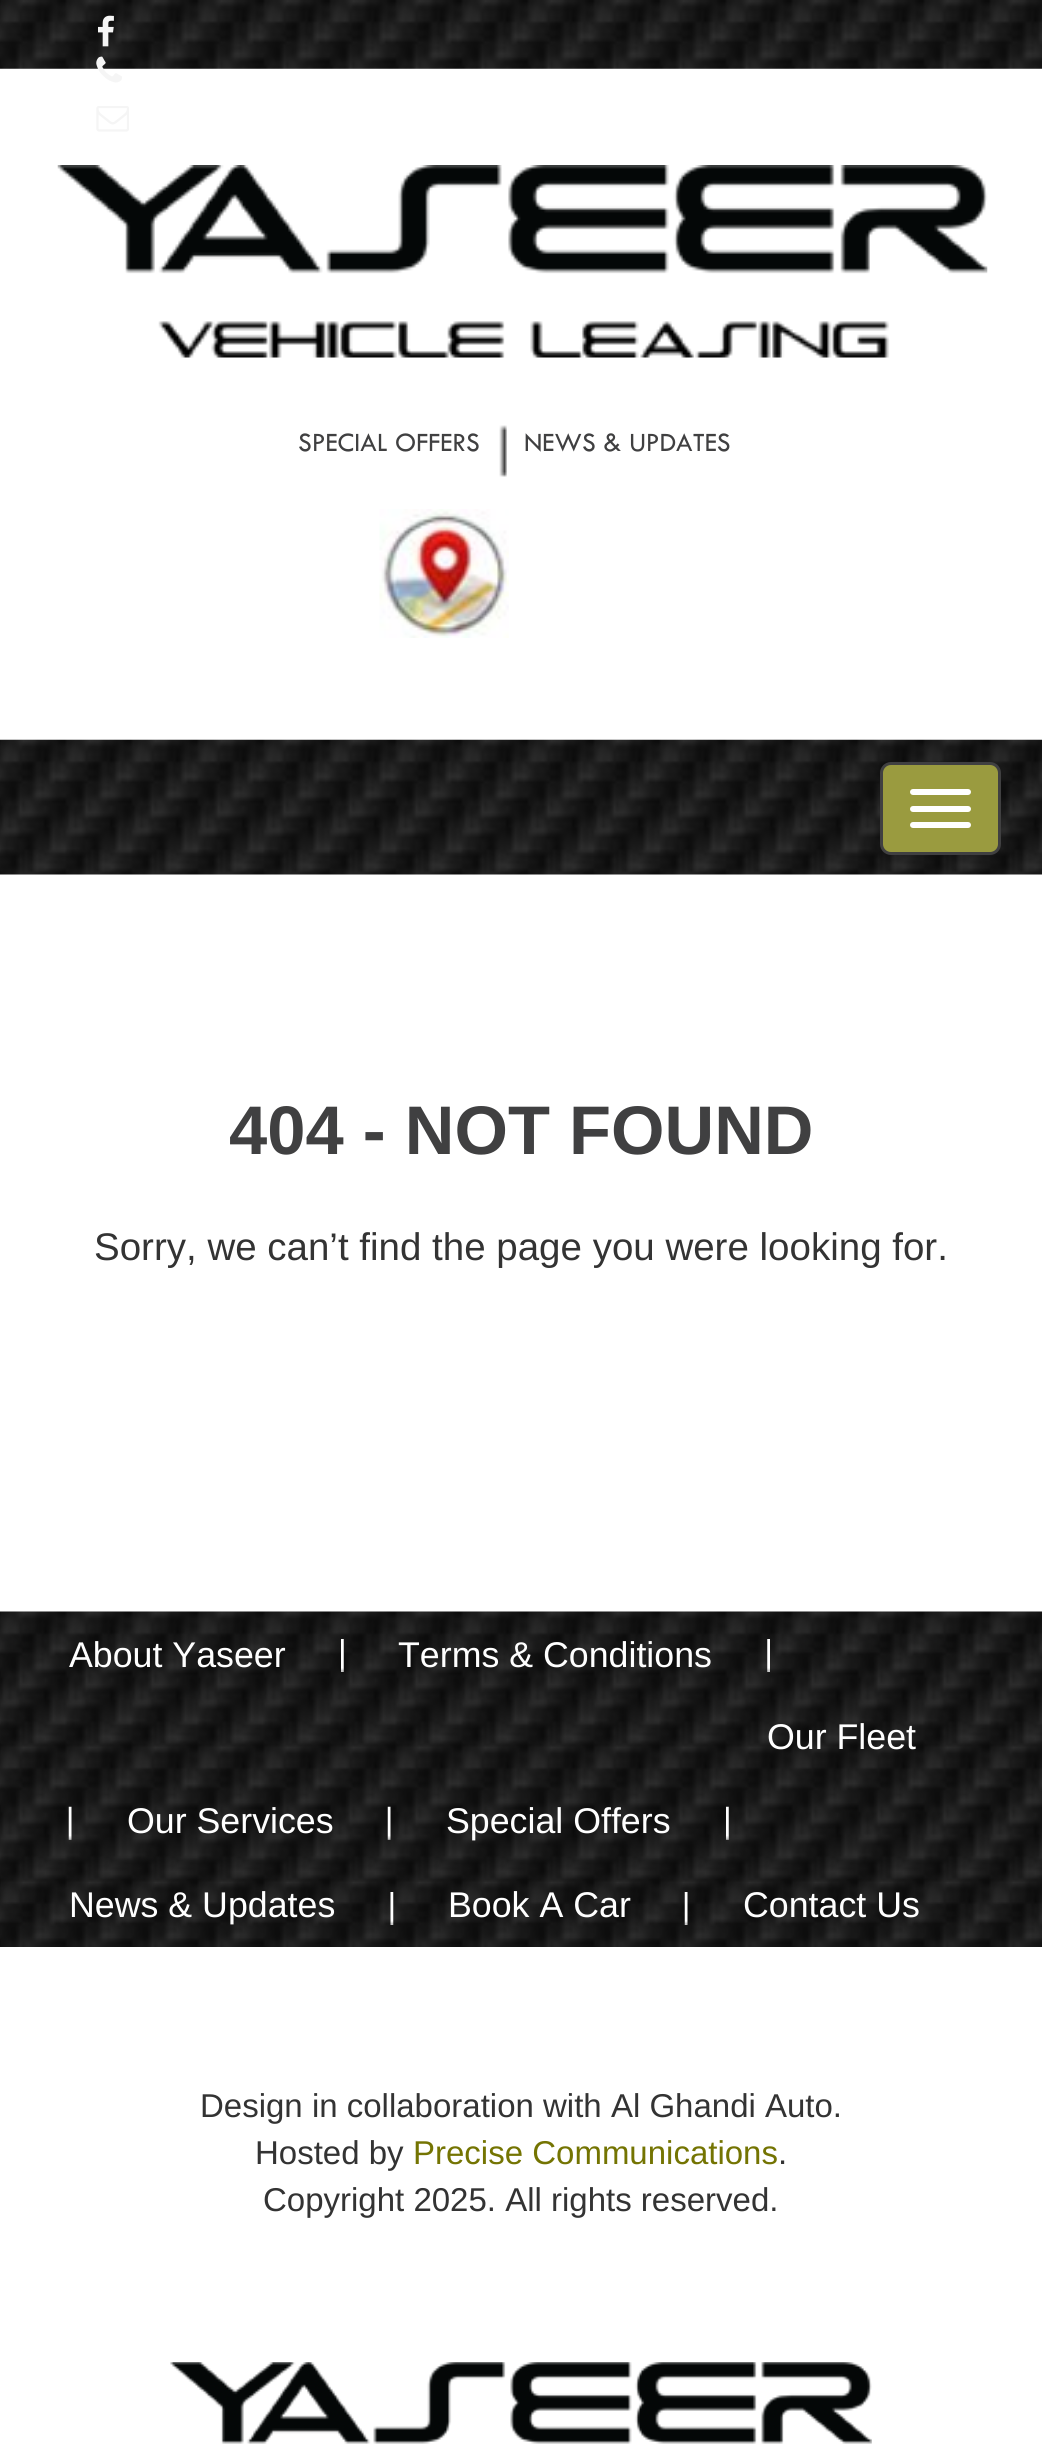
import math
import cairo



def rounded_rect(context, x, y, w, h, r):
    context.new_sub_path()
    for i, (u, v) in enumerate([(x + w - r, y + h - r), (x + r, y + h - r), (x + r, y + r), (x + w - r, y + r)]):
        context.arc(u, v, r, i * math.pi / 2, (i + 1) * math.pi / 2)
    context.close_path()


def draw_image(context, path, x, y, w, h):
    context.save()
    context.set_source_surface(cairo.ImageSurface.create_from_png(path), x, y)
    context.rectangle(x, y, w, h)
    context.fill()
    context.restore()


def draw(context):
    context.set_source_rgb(1, 1, 1)
    context.paint()
    draw_image(context, "images/1.png", 0, 0, 1042, 69)
    draw_image(context, "images/2.png", 98, 15, 16, 32)
    draw_image(context, "images/3.png", 96, 56, 26, 27)
    draw_image(context, "images/4.png", 96, 106, 33, 26)
    draw_image(context, "images/5.png", 57, 165, 931, 193)
    draw_image(context, "images/6.png", 499, 425, 8, 52)
    draw_image(context, "images/7.png", 379, 509, 130, 129)
    draw_image(context, "images/8.png", 0, 739, 1042, 136)
    context.set_source_rgb(154 / 255, 155 / 255, 63 / 255)
    rounded_rect(context, 881.5, 763.5, 118, 90, 9.5)
    context.fill_preserve()
    context.set_source_rgb(64 / 255, 64 / 255, 65 / 255)
    context.set_line_width(3)
    context.stroke()
    context.set_source_rgb(1, 1, 1)
    rounded_rect(context, 910, 789, 61, 6, 3)
    context.fill()
    rounded_rect(context, 910, 806, 61, 6, 3)
    context.fill()
    rounded_rect(context, 910, 822, 61, 6, 3)
    context.fill()
    draw_image(context, "images/9.png", 0, 1611, 1042, 336)
    draw_image(context, "images/10.png", 341, 1639, 3, 33)
    draw_image(context, "images/11.png", 767, 1639, 3, 33)
    draw_image(context, "images/12.png", 68, 1806, 4, 34)
    draw_image(context, "images/13.png", 387, 1806, 4, 34)
    draw_image(context, "images/14.png", 726, 1806, 3, 34)
    draw_image(context, "images/15.png", 390, 1892, 4, 33)
    draw_image(context, "images/16.png", 684, 1892, 4, 33)
    draw_image(context, "images/17.png", 170, 2362, 702, 82)
    context.select_font_face("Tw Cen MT")
    context.set_font_size(27.5)
    context.set_source_rgb(64 / 255, 64 / 255, 65 / 255)
    context.move_to(298, 451)
    context.show_text("SPECIAL OFFERS")
    context.move_to(524, 451)
    context.show_text("NEWS & UPDATES")
    context.select_font_face("Liberation Sans", cairo.FontSlant.NORMAL, cairo.FontWeight.BOLD)
    context.set_font_size(68.75)
    context.move_to(229, 1154)
    context.show_text("404 - NOT FOUND")
    context.select_font_face("Liberation Sans")
    context.set_font_size(38.5)
    context.set_source_rgb(51 / 255, 51 / 255, 51 / 255)
    context.move_to(94, 1260)
    context.show_text("Sorry, we can’t find the page you were looking for.")
    context.set_font_size(35.75)
    context.set_source_rgb(1, 1, 1)
    context.move_to(69, 1667)
    context.show_text("About Yaseer")
    context.move_to(398, 1667)
    context.show_text("Terms & Conditions")
    context.move_to(767, 1749)
    context.show_text("Our Fleet")
    context.move_to(127, 1833)
    context.show_text("Our Services")
    context.move_to(446, 1833)
    context.show_text("Special Offers")
    context.move_to(69, 1917)
    context.show_text("News & Updates")
    context.move_to(448, 1917)
    context.show_text("Book A Car")
    context.move_to(743, 1917)
    context.show_text("Contact Us")
    context.set_font_size(33)
    context.set_source_rgb(51 / 255, 51 / 255, 51 / 255)
    context.move_to(200, 2117)
    context.show_text("Design in collaboration with Al Ghandi Auto.")
    context.move_to(255, 2164)
    context.show_text("Hosted by")
    context.set_source_rgb(116 / 255, 116 / 255, 2 / 255)
    context.move_to(413, 2164)
    context.show_text("Precise Communications")
    context.set_source_rgb(51 / 255, 51 / 255, 51 / 255)
    context.move_to(778, 2164)
    context.show_text(".")
    context.move_to(263, 2211)
    context.show_text("Copyright 2025. All rights reserved.")


surface = cairo.ImageSurface(cairo.Format.RGB24, 1042, 2464)
context = cairo.Context(surface)
options = cairo.FontOptions()
options.set_hint_metrics(cairo.HintMetrics.OFF)
options.set_hint_style(cairo.HintStyle.NONE)
context.set_font_options(options)
context.set_miter_limit(4)
draw(context)
surface.write_to_png("out.png")
